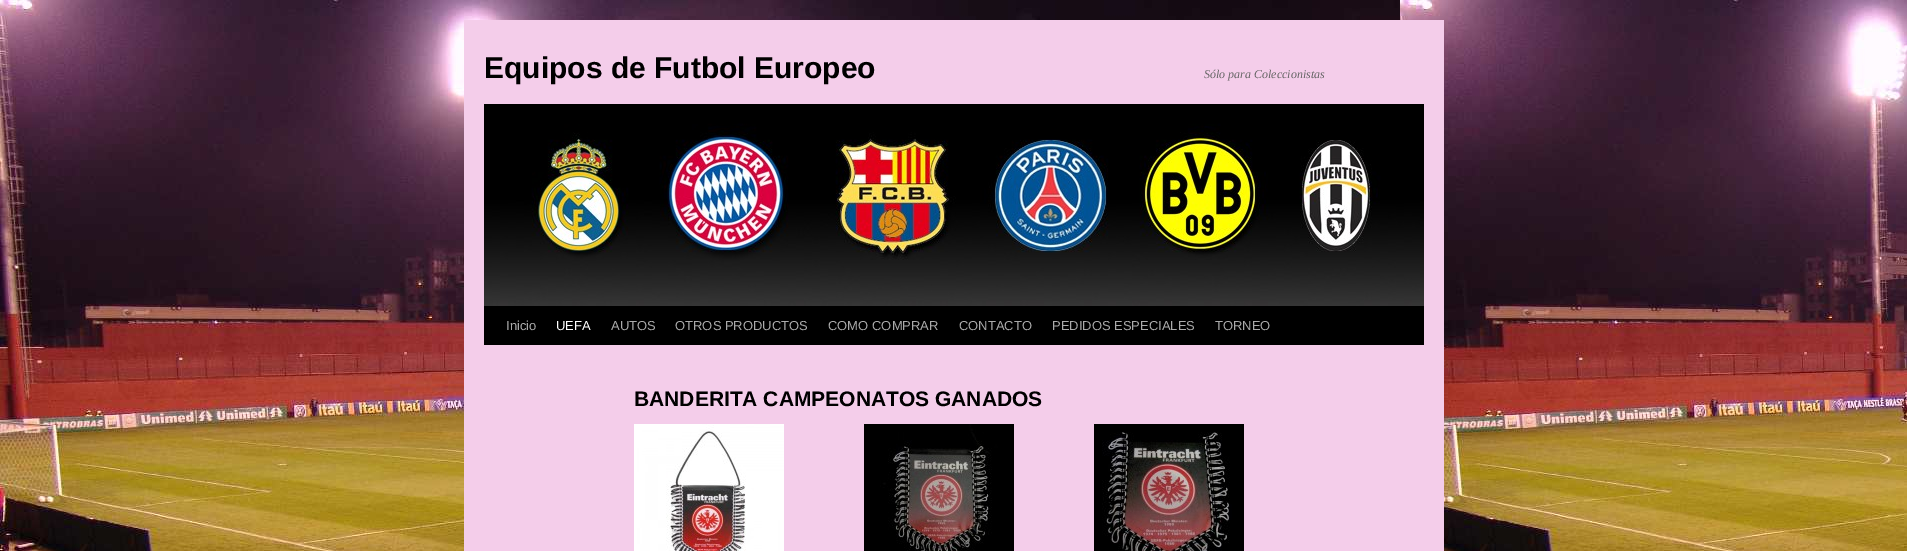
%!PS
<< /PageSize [1907 551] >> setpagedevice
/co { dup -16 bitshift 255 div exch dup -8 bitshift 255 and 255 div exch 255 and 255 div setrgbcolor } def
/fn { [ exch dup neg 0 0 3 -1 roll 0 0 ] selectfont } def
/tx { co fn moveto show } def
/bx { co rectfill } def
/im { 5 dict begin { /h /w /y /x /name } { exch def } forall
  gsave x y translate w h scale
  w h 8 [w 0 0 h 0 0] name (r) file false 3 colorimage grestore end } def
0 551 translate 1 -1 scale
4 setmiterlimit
0 0 1907 551 16#FFFFFF bx
(media/1.raw) 0 0 1907 551 im
464 20 980 531 16#F4CDEA bx
484 104 940 4 16#000000 bx
484 306 940 39 16#000000 bx
(media/2.raw) 484 108 940 198 im
(media/3.raw) 634 424 150 127 im
(media/4.raw) 864 424 150 127 im
(media/5.raw) 1094 424 150 127 im
(Equipos de Futbol Europeo) 484 78 /LiberationSans-Bold 30 16#000000 tx
(Sólo para Coleccionistas) 1204 78 /LiberationSerif-Italic 12 16#666666 tx
(Inicio) 506 330 /LiberationSans-Regular 13 16#AAAAAA tx
(UEFA) 556 330 /LiberationSans-Regular 13 16#FFFFFF tx
(AUTOS) 611 330 /LiberationSans-Regular 13 16#AAAAAA tx
(OTROS PRODUCTOS) 675 330 /LiberationSans-Regular 13 16#AAAAAA tx
(COMO COMPRAR) 828 330 /LiberationSans-Regular 13 16#AAAAAA tx
(CONTACTO) 959 330 /LiberationSans-Regular 13 16#AAAAAA tx
(PEDIDOS ESPECIALES) 1052 330 /LiberationSans-Regular 13 16#AAAAAA tx
(TORNEO) 1215 330 /LiberationSans-Regular 13 16#AAAAAA tx
(BANDERITA CAMPEONATOS GANADOS) 634 406 /LiberationSans-Bold 21 16#000000 tx
showpage
